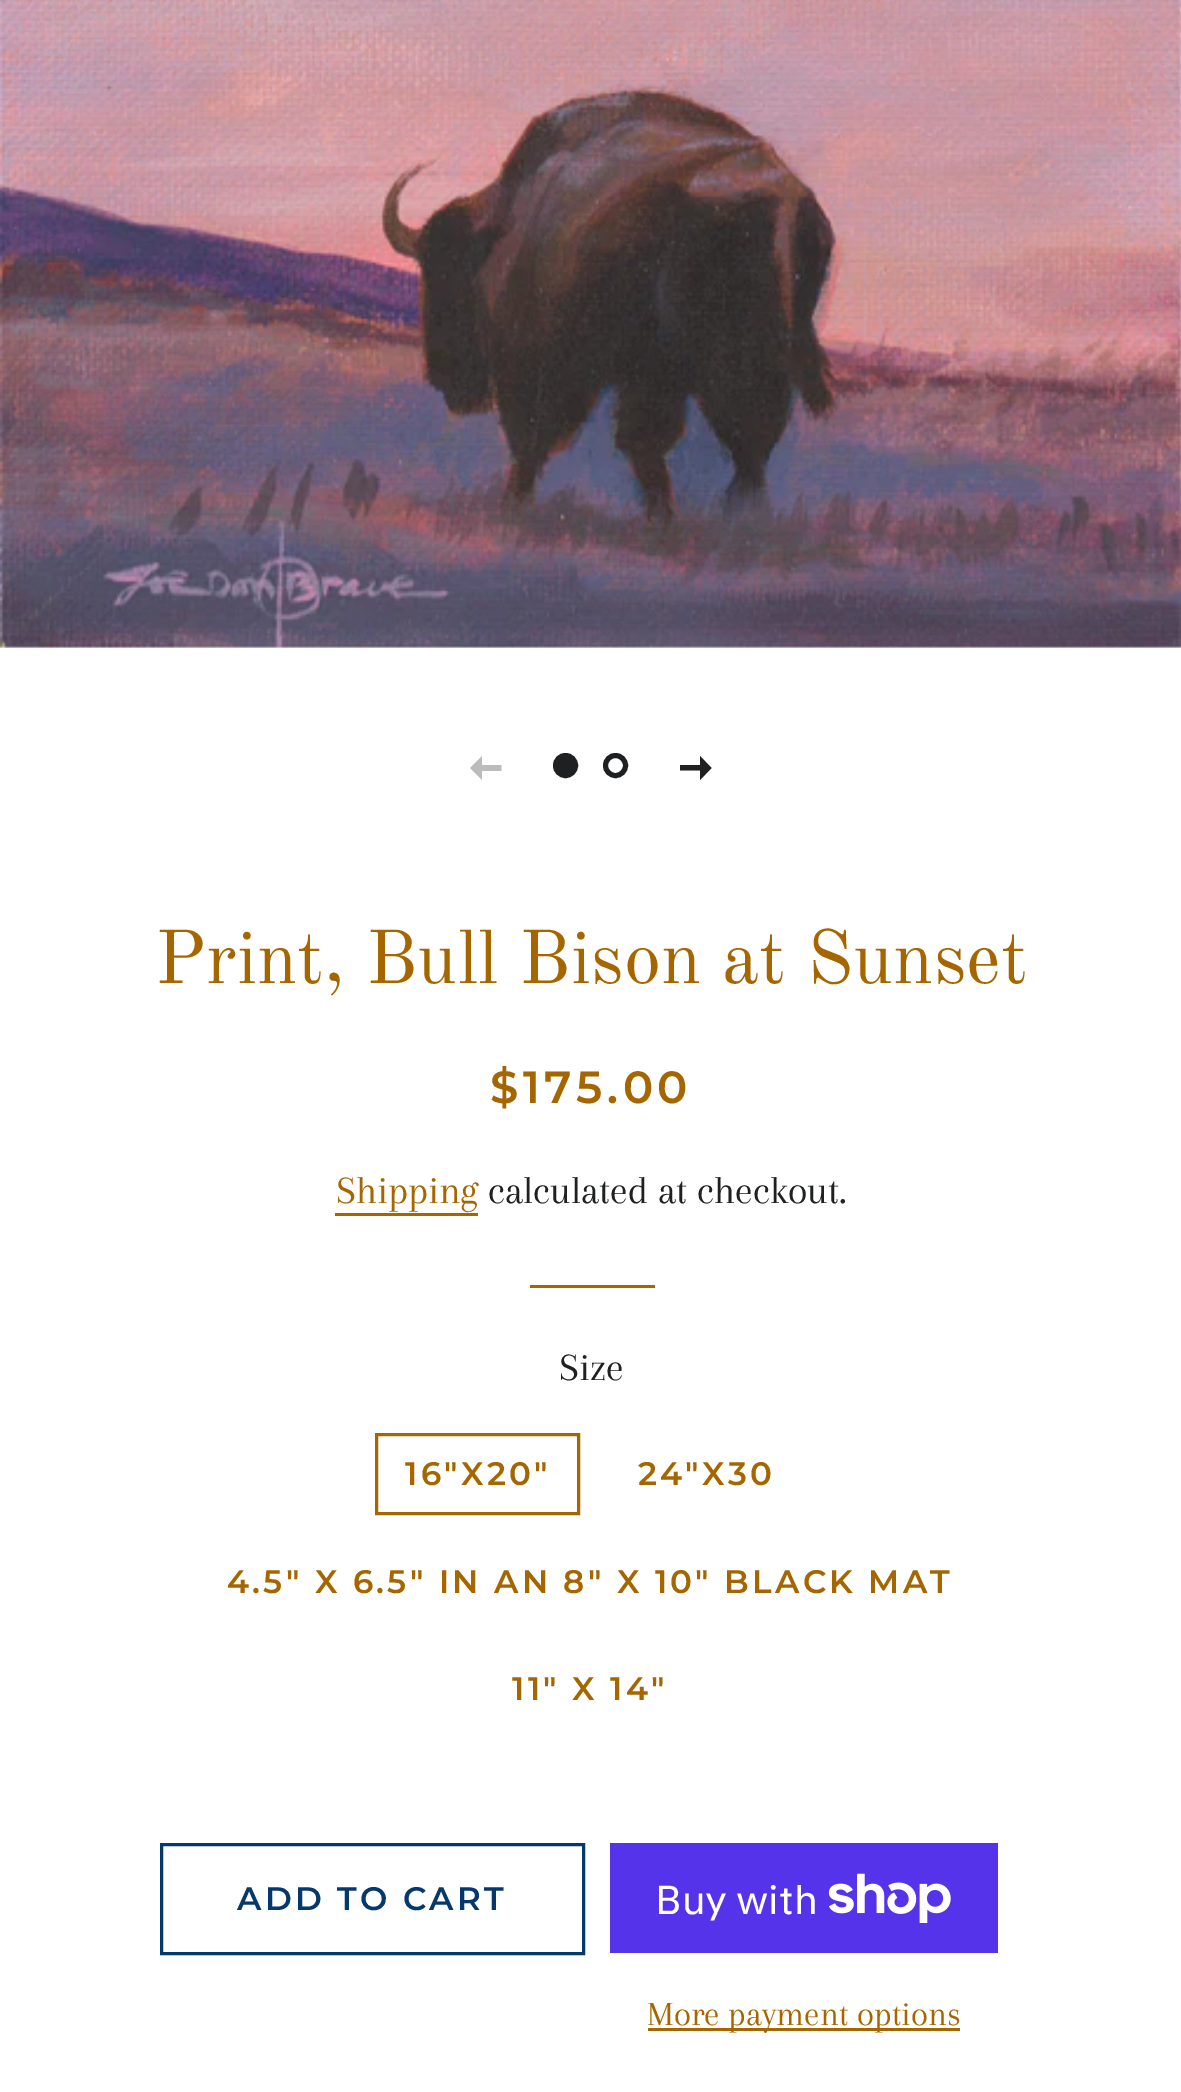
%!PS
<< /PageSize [1181 2092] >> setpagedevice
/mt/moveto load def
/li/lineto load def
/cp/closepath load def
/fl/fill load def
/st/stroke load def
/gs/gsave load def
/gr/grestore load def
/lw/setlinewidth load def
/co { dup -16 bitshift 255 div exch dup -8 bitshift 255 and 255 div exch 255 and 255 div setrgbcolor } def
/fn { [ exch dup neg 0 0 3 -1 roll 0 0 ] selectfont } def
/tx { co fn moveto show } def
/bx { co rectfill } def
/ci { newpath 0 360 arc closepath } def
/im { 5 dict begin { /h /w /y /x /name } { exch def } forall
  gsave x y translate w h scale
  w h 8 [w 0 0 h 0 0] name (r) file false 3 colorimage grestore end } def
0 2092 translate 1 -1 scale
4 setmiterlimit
0 0 1181 2092 16#FFFFFF bx
0 646 1181 2 16#F6F6F6 bx
(media/1.raw) 0 0 1181 648 im
16#BCBCBC co
470 768 mt 482 780 li 482 771 li 501.5 771 li 501.5 765 li 482 765 li 482 756 li cp fl
16#1F2021 co
565.5 765.5 10 ci gs fl gr
5 lw
st
615.5 765.5 10 ci st
711.5 768 mt 700 756 li 700 765 li 680 765 li 680 770.5 li 700 770.5 li 700 780 li cp fl
335 1213 143 3 16#A56600 bx
530 1285 125 3 16#A56600 bx
3 lw
376.5 1434.5 202 79 rectstroke
16#05386C co
161.5 1844.5 422 109 rectstroke
610 1843 388 110 16#5433EB bx
(media/2.raw) 828 1873 123 50 im
648 2028 312 3 16#A56600 bx
(Print, Bull Bison at Sunset) 155 983 /OldStandardTT-Regular 75 16#A56600 tx
/Montserrat-SemiBold 45 fn
490 1103 mt 4.5 0 ($175.00) ashow
(Shipping) 336 1203 /Arapey-Regular 40 16#A56600 tx
(calculated at checkout.) 488 1203 /Arapey-Regular 40 16#1F2021 tx
(Size) 559 1380 /Arapey-Regular 40 16#1F2021 tx
/Montserrat-SemiBold 32.5 fn
16#A56600 co
405 1485 mt 3.25 0 (16"X20") ashow
638 1485 mt 3.25 0 (24"X30) ashow
227 1593 mt 3.25 0 (4.5" X 6.5" IN AN 8" X 10" BLACK MAT) ashow
512 1700 mt 3.25 0 (11" X 14") ashow
16#05386C co
237 1910 mt 3.25 0 (ADD TO CART) ashow
(Buy with) 655 1914 /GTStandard-Regular 40 16#FFFFFF tx
(More payment options) 647 2025 /Arapey-Regular 35 16#A56600 tx
showpage
